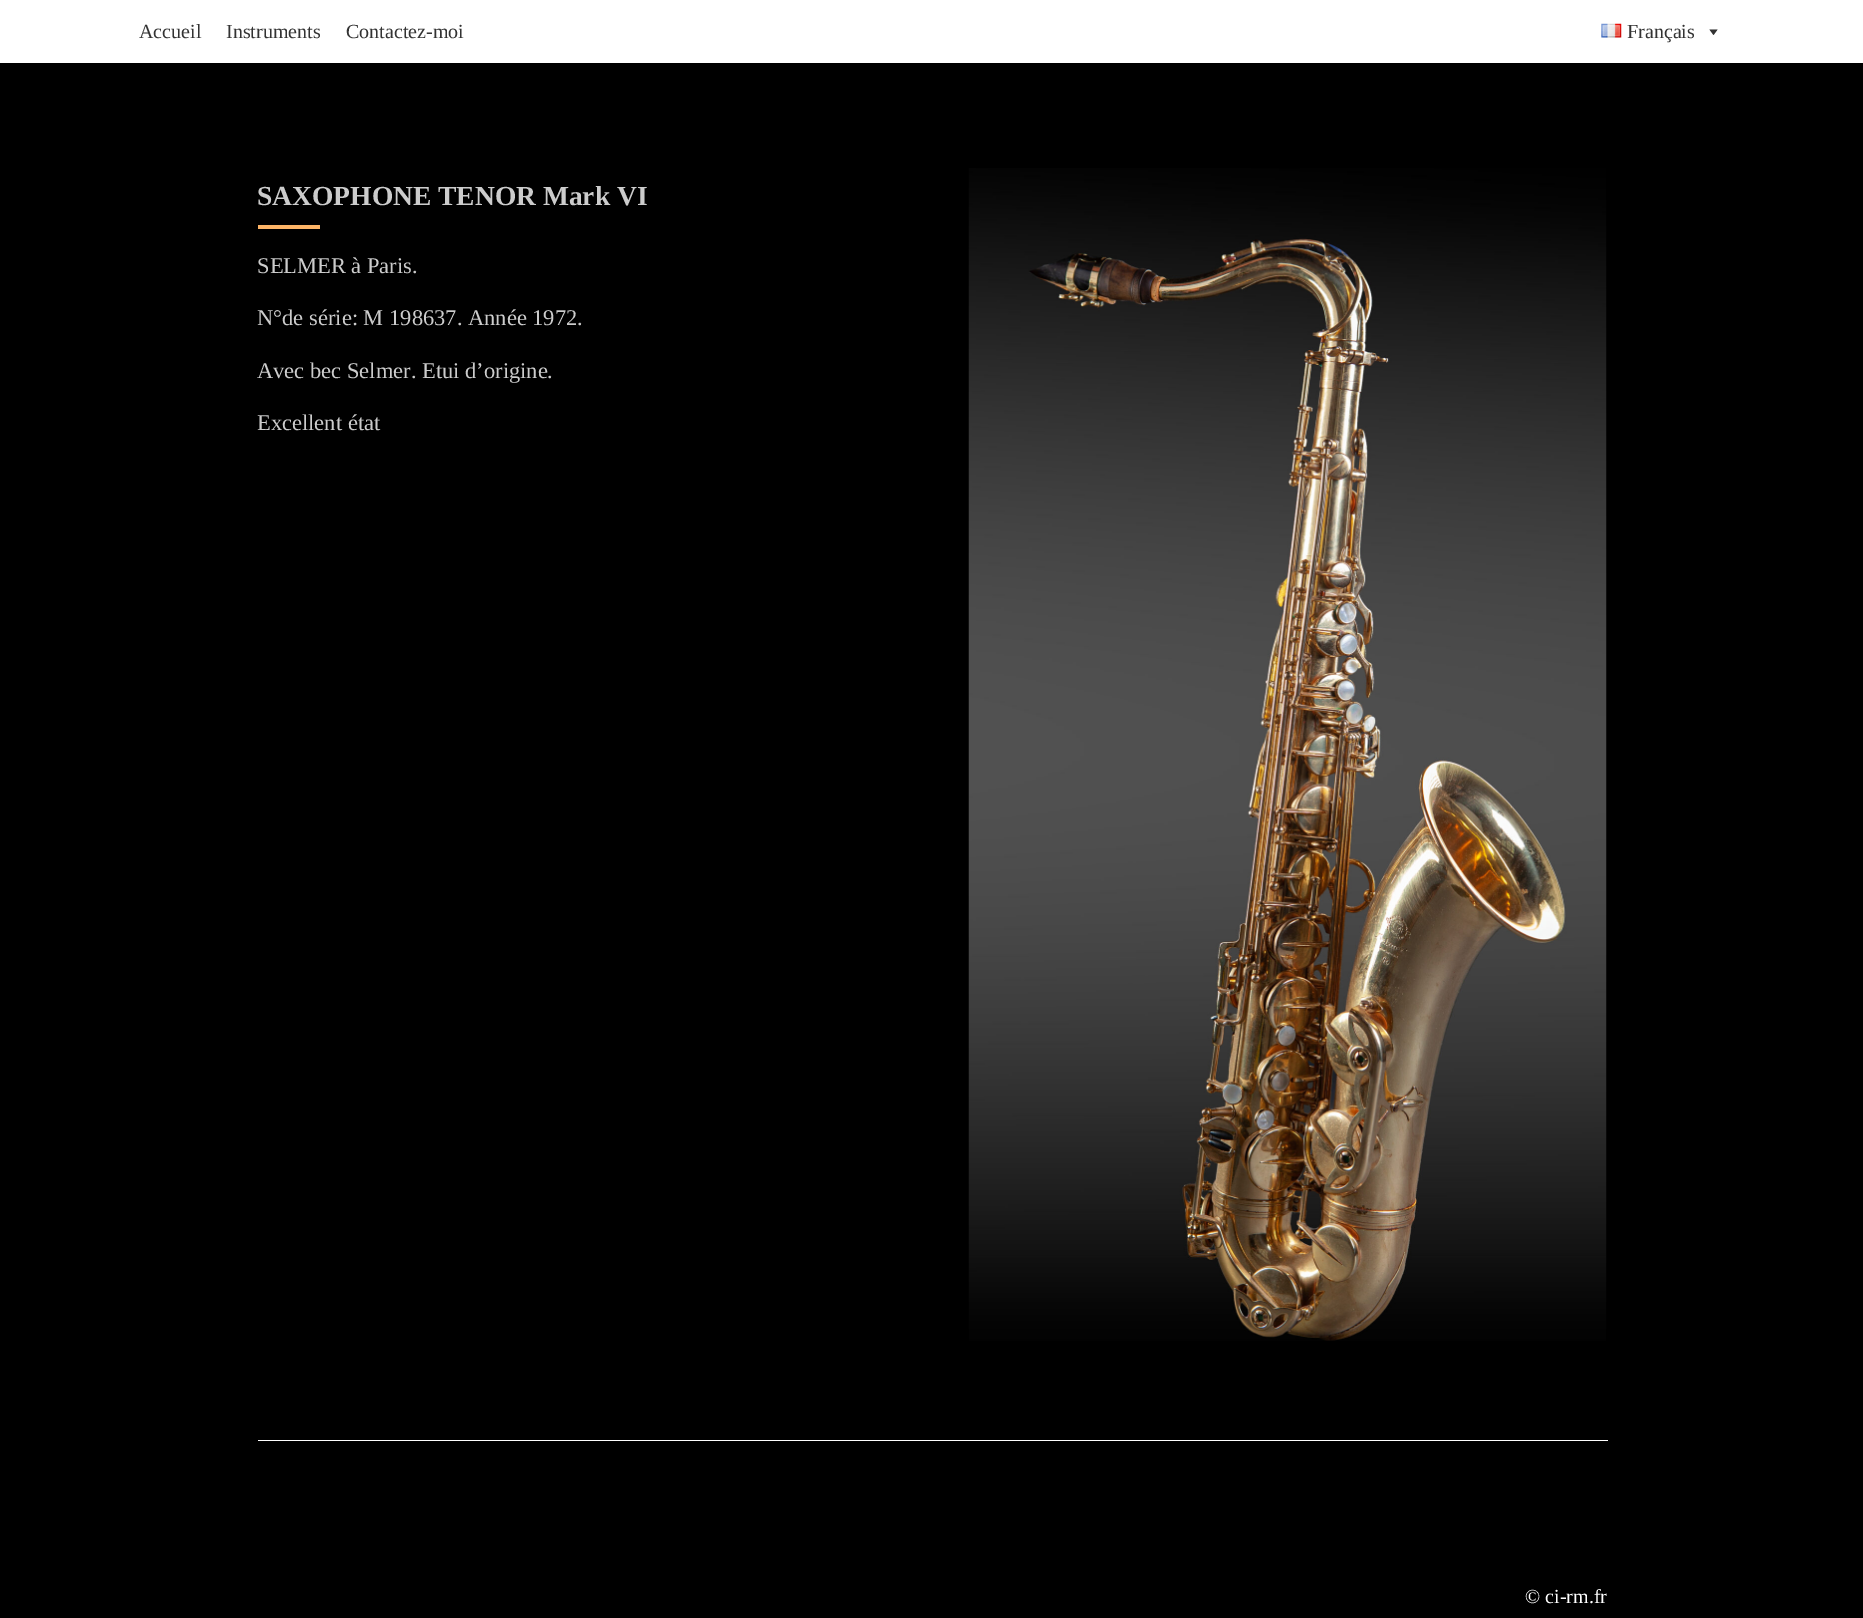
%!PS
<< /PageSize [1863 1618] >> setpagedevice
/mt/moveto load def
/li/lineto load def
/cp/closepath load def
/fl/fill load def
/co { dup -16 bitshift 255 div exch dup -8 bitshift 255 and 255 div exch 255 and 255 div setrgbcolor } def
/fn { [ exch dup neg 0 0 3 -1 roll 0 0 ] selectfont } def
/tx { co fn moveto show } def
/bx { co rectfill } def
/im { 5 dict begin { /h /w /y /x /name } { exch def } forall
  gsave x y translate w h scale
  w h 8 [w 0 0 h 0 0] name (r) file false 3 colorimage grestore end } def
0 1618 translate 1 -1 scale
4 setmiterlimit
0 0 1863 1618 16#000000 bx
0 0 1863 63 16#FFFFFF bx
(media/1.raw) 1601 23 21 15 im
16#333333 co
1717.5 29.5 mt 1713.5 35 li 1709.5 29.5 li cp fl
258 1440 1350 1 16#FFFFFF bx
258 225 62 4 16#FDB467 bx
(media/2.raw) 968 168 639 1173 im
(Accueil) 139 38 /LiberationSerif-Regular 20 16#333333 tx
(Instruments) 226 38 /LiberationSerif-Regular 20 16#333333 tx
(Contactez-moi) 346 38 /LiberationSerif-Regular 20 16#333333 tx
(Français) 1627 38 /LiberationSerif-Regular 20 16#333333 tx
(SAXOPHONE TENOR Mark VI) 257 205 /LiberationSerif-Bold 27.5 16#CCCCCC tx
(SELMER à Paris.) 257 273 /LiberationSerif-Regular 22.5 16#CCCCCC tx
(N°de série: M 198637. Année 1972.) 257 325 /LiberationSerif-Regular 22.5 16#CCCCCC tx
(Avec bec Selmer. Etui d’origine.) 257 378 /LiberationSerif-Regular 22.5 16#CCCCCC tx
(Excellent état) 257 430 /LiberationSerif-Regular 22.5 16#CCCCCC tx
(© ci-rm.fr) 1525 1603 /LiberationSerif-Regular 20 16#FFFFFF tx
showpage
